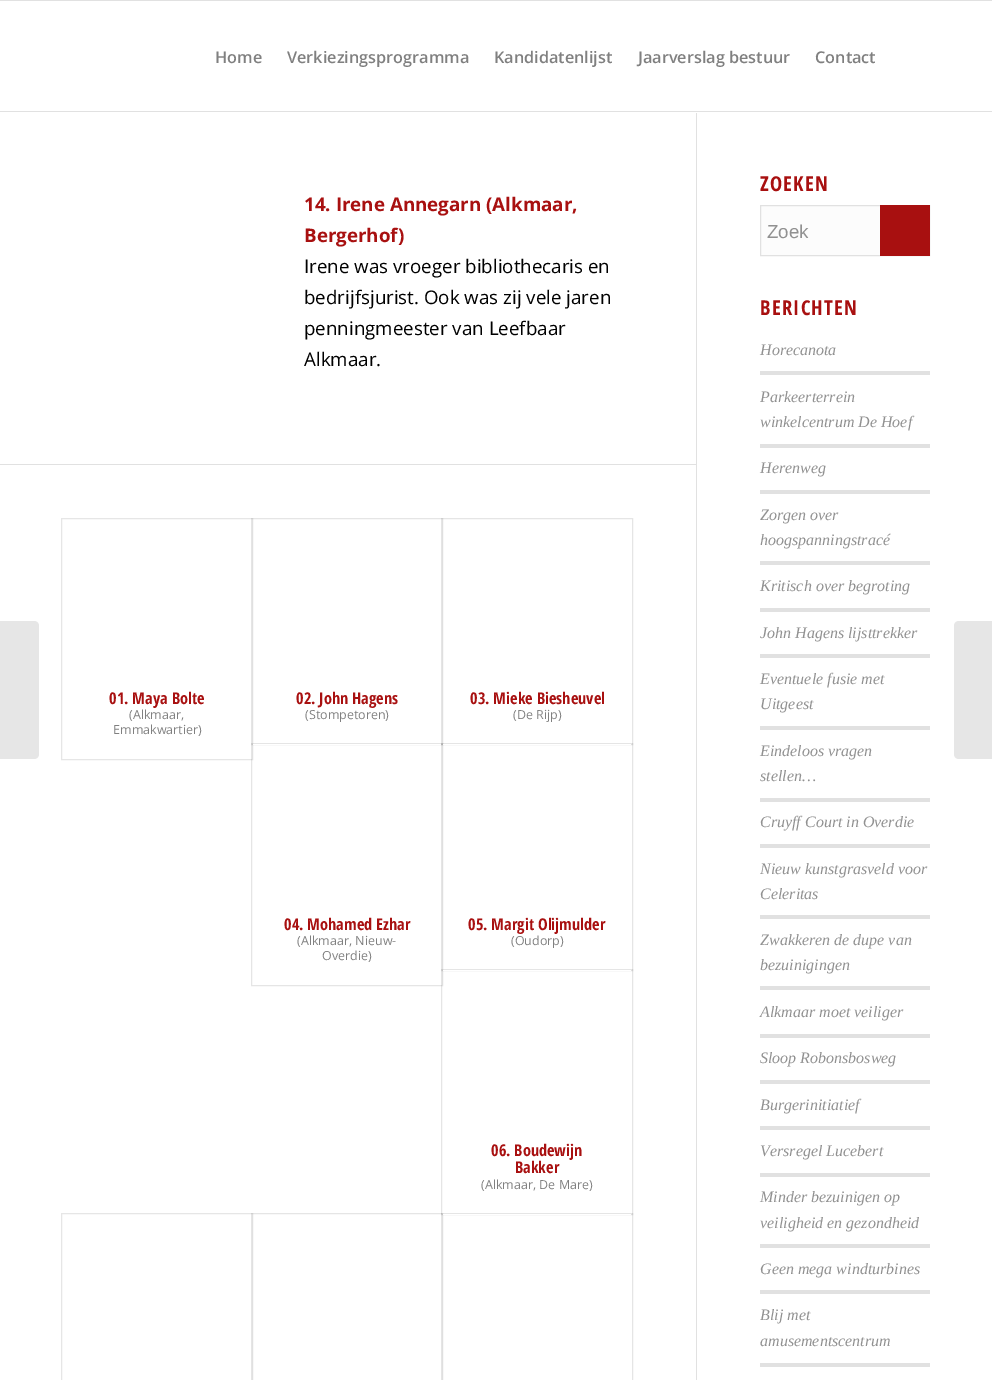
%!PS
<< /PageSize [992 1380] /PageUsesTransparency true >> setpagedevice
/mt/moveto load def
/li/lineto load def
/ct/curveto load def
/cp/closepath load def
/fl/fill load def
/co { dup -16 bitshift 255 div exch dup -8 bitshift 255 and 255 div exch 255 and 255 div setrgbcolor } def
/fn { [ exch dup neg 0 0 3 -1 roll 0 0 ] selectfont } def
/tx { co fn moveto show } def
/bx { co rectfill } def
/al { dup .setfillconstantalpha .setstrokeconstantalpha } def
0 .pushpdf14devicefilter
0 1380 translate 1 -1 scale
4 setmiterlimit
0 0 992 1380 16#FFFFFF bx
0 0 992 1 16#E1E1E1 bx
696 110 1 1270 16#E1E1E1 bx
696 110 1 3 16#FFFFFF bx
0 111 992 1 16#E1E1E1 bx
16#E6E6E6 co
0 621 mt 34 621 li 37 621 39 623 39 626 ct 39 754 li 39 757 37 759 34 759 ct 0 759 li cp fl
0 464 696 1 16#E1E1E1 bx
16#E6E6E6 co
61.5 518.5 191 241 rectstroke
0.1 al
16#000000 co
251.5 518.5 191 226 rectstroke
441.5 518.5 191 226 rectstroke
251.5 743.5 191 242 rectstroke
1 al
253 744 188 1 16#FFFFFF bx
0.1 al
16#000000 co
441.5 743.5 191 227 rectstroke
1 al
443 744 188 1 16#FFFFFF bx
0.1 al
16#000000 co
441.5 969.5 191 245 rectstroke
1 al
443 970 188 1 16#FFFFFF bx
16#E6E6E6 co
61.5 1213.5 191 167 rectstroke
0.1 al
16#000000 co
251.5 1213.5 191 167 rectstroke
441.5 1213.5 191 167 rectstroke
1 al
443 1214 188 1 16#FFFFFF bx
761 206 119 49 16#FCFCFC bx
16#E1E1E1 co
760.5 205.5 169 50 rectstroke
880 205 50 51 16#A81010 bx
760 371 170 4 16#E1E1E1 bx
760 444 170 4 16#E1E1E1 bx
760 490 170 4 16#E1E1E1 bx
760 561 170 4 16#E1E1E1 bx
760 608 170 4 16#E1E1E1 bx
760 654 170 4 16#E1E1E1 bx
760 726 170 4 16#E1E1E1 bx
760 798 170 4 16#E1E1E1 bx
760 844 170 4 16#E1E1E1 bx
760 915 170 4 16#E1E1E1 bx
760 986 170 4 16#E1E1E1 bx
760 1034 170 4 16#E1E1E1 bx
760 1080 170 4 16#E1E1E1 bx
760 1126 170 4 16#E1E1E1 bx
760 1173 170 4 16#E1E1E1 bx
760 1244 170 4 16#E1E1E1 bx
760 1290 170 4 16#E1E1E1 bx
760 1363 170 4 16#E1E1E1 bx
16#E6E6E6 co
959 621 mt 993 621 li 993 759 li 959 759 li 956 759 954 757 954 754 ct 954 626 li 954 623 956 621 959 621 ct cp fl
(Home) 215 63 /OpenSans-SemiBold 16.25 16#808080 tx
(Verkiezingsprogramma) 287 63 /OpenSans-SemiBold 16.25 16#808080 tx
(Kandidatenlijst) 494 63 /OpenSans-SemiBold 16.25 16#808080 tx
(Jaarverslag bestuur) 638 63 /OpenSans-SemiBold 16.25 16#808080 tx
(Contact) 815 63 /OpenSans-SemiBold 16.25 16#808080 tx
(14. Irene Annegarn \(Alkmaar,) 304 211 /OpenSans-Bold 18.75 16#A81010 tx
(Bergerhof\)) 304 242 /OpenSans-Bold 18.75 16#A81010 tx
(Irene was vroeger bibliothecaris en) 304 273 /OpenSans-Regular 18.75 16#000000 tx
(bedrijfsjurist. Ook was zij vele jaren) 304 304 /OpenSans-Regular 18.75 16#000000 tx
(penningmeester van Leefbaar) 304 335 /OpenSans-Regular 18.75 16#000000 tx
(Alkmaar.) 304 366 /OpenSans-Regular 18.75 16#000000 tx
(01. Maya Bolte) 109 704 /OpenSansCondensed-Bold 16.25 16#A81010 tx
(\(Alkmaar,) 129 719 /OpenSans-Regular 12.5 16#808080 tx
(Emmakwartier\)) 113 734 /OpenSans-Regular 12.5 16#808080 tx
(02. John Hagens) 296 704 /OpenSansCondensed-Bold 16.25 16#A81010 tx
(\(Stompetoren\)) 305 719 /OpenSans-Regular 12.5 16#808080 tx
(03. Mieke Biesheuvel) 470 704 /OpenSansCondensed-Bold 16.25 16#A81010 tx
(\(De Rijp\)) 513 719 /OpenSans-Regular 12.5 16#808080 tx
(04. Mohamed Ezhar) 284 930 /OpenSansCondensed-Bold 16.25 16#A81010 tx
(\(Alkmaar, Nieuw-) 297 945 /OpenSans-Regular 12.5 16#808080 tx
(Overdie\)) 322 960 /OpenSans-Regular 12.5 16#808080 tx
(05. Margit Olijmulder) 468 930 /OpenSansCondensed-Bold 16.25 16#A81010 tx
(\(Oudorp\)) 511 945 /OpenSans-Regular 12.5 16#808080 tx
(06. Boudewijn) 491 1156 /OpenSansCondensed-Bold 16.25 16#A81010 tx
(Bakker) 515 1173 /OpenSansCondensed-Bold 16.25 16#A81010 tx
(\(Alkmaar, De Mare\)) 481 1189 /OpenSans-Regular 12.5 16#808080 tx
/OpenSansCondensed-Bold 20.5 fn
16#A81010 co
760 191 mt 1.25 0 (ZOEKEN) ashow
(Zoek) 767 238 /LiberationSans-Regular 18.75 16#919191 tx
/OpenSansCondensed-Bold 20.5 fn
16#A81010 co
760 315 mt 1.25 0 (BERICHTEN) ashow
(Horecanota) 760 355 /LiberationSerif-Italic 16 16#919191 tx
(Parkeerterrein) 760 402 /LiberationSerif-Italic 16 16#919191 tx
(winkelcentrum De Hoef) 760 427 /LiberationSerif-Italic 16 16#919191 tx
(Herenweg) 760 473 /LiberationSerif-Italic 16 16#919191 tx
(Zorgen over) 760 520 /LiberationSerif-Italic 16 16#919191 tx
(hoogspanningstracé) 760 545 /LiberationSerif-Italic 16 16#919191 tx
(Kritisch over begroting) 760 591 /LiberationSerif-Italic 16 16#919191 tx
(John Hagens lijsttrekker) 760 638 /LiberationSerif-Italic 16 16#919191 tx
(Eventuele fusie met) 760 684 /LiberationSerif-Italic 16 16#919191 tx
(Uitgeest) 760 709 /LiberationSerif-Italic 16 16#919191 tx
(Eindeloos vragen) 760 756 /LiberationSerif-Italic 16 16#919191 tx
(stellen…) 760 781 /LiberationSerif-Italic 16 16#919191 tx
(Cruyff Court in Overdie) 760 827 /LiberationSerif-Italic 16 16#919191 tx
(Nieuw kunstgrasveld voor) 760 874 /LiberationSerif-Italic 16 16#919191 tx
(Celeritas) 760 899 /LiberationSerif-Italic 16 16#919191 tx
(Zwakkeren de dupe van) 760 945 /LiberationSerif-Italic 16 16#919191 tx
(bezuinigingen) 760 970 /LiberationSerif-Italic 16 16#919191 tx
(Alkmaar moet veiliger) 760 1017 /LiberationSerif-Italic 16 16#919191 tx
(Sloop Robonsbosweg) 760 1063 /LiberationSerif-Italic 16 16#919191 tx
(Burgerinitiatief) 760 1110 /LiberationSerif-Italic 16 16#919191 tx
(Versregel Lucebert) 760 1156 /LiberationSerif-Italic 16 16#919191 tx
(Minder bezuinigen op) 760 1202 /LiberationSerif-Italic 16 16#919191 tx
(veiligheid en gezondheid) 760 1228 /LiberationSerif-Italic 16 16#919191 tx
(Geen mega windturbines) 760 1274 /LiberationSerif-Italic 16 16#919191 tx
(Blij met) 760 1320 /LiberationSerif-Italic 16 16#919191 tx
(amusementscentrum) 760 1346 /LiberationSerif-Italic 16 16#919191 tx
.poppdf14devicefilter showpage
